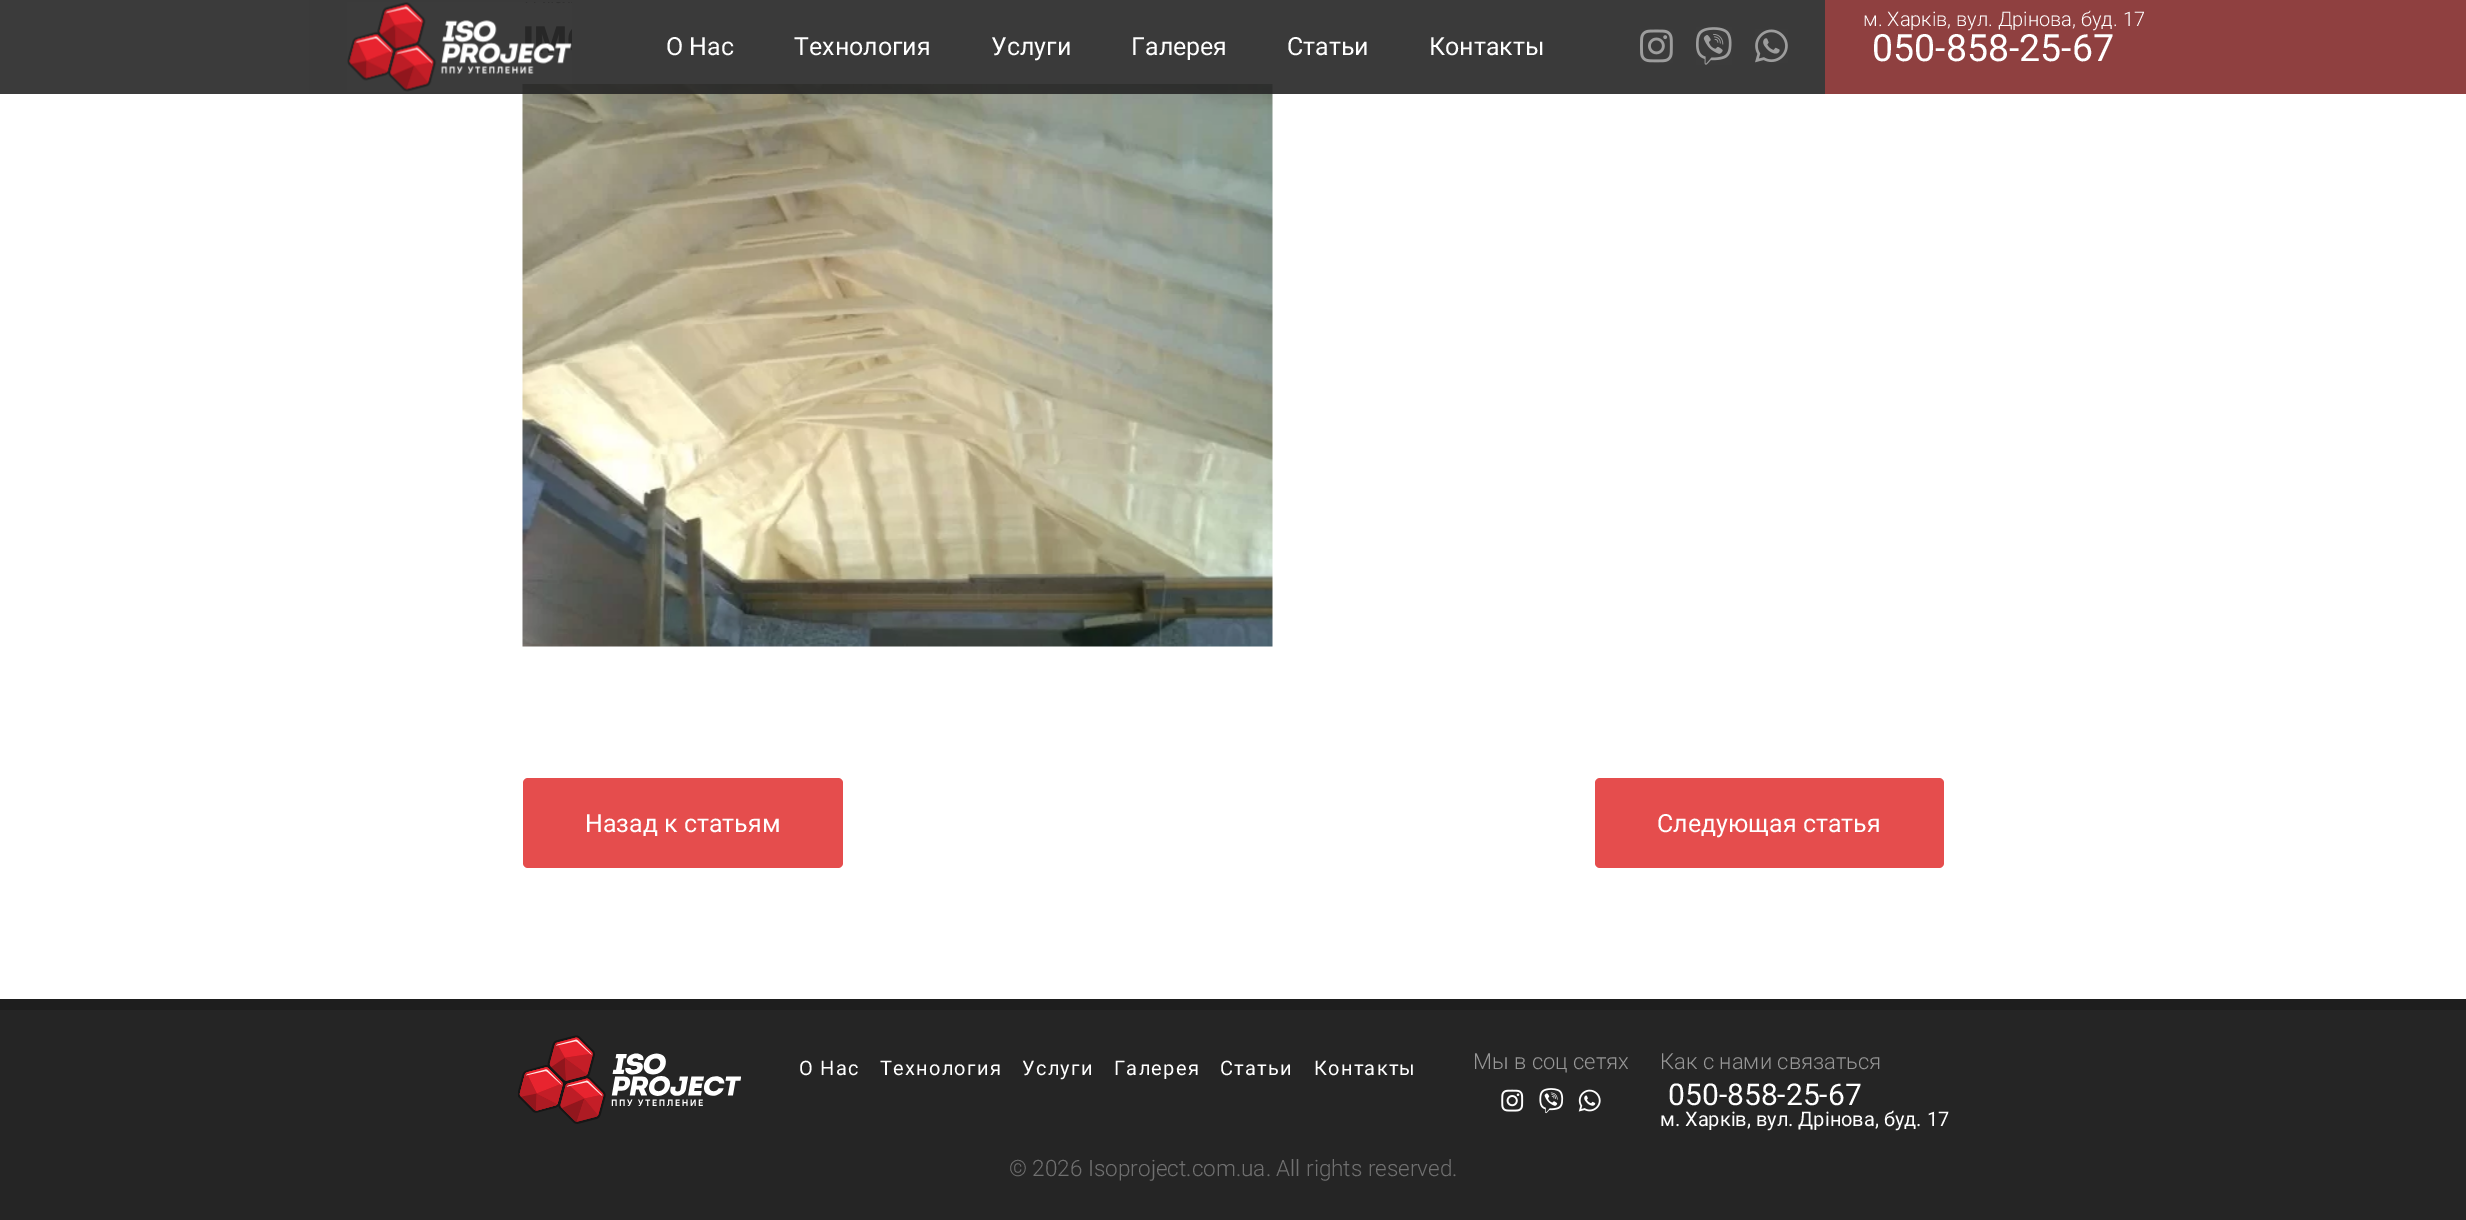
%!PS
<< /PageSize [2466 1220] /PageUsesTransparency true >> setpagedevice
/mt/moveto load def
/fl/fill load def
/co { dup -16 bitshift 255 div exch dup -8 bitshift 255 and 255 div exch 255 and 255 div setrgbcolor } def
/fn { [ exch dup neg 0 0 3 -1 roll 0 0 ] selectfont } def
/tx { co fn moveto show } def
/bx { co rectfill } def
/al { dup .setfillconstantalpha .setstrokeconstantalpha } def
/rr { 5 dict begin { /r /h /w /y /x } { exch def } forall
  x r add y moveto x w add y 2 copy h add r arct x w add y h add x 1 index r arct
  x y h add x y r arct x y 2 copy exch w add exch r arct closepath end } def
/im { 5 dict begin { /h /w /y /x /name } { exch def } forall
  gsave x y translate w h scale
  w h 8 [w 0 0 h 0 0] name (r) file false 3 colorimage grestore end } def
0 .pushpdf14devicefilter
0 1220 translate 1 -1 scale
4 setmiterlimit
0 0 2466 1220 16#FFFFFF bx
(media/5.raw) 522 84 751 563 im
0.9 al
309 0 1516 94 16#252525 bx
1 al
0 0 309 94 16#3B3B3B bx
(media/1.raw) 347 2 225 90 im
(media/2.raw) 1640 29 33 34 im
(media/3.raw) 1696 27 36 38 im
(media/4.raw) 1755 29 33 34 im
1825 0 641 94 16#8F4040 bx
16#E54D4D co
523 778 320 90 5 rr fl
1595 778 349 90 5 rr fl
0 1010 2466 210 16#252525 bx
0 999 2466 11 16#1E1E1E bx
(media/6.raw) 518 1035 223 89 im
(media/7.raw) 1501 1089 23 23 im
(media/8.raw) 1539 1088 25 26 im
(media/9.raw) 1578 1089 23 23 im
(O Hac) 666 55 /Roboto-Regular 25 16#FFFFFF tx
(Технология) 794 55 /Roboto-Regular 25 16#FFFFFF tx
(Услуги) 991 55 /Roboto-Regular 25 16#FFFFFF tx
(Галерея) 1131 55 /Roboto-Regular 25 16#FFFFFF tx
(Статьи) 1287 55 /Roboto-Regular 25 16#FFFFFF tx
(Контакты) 1429 55 /Roboto-Regular 25 16#FFFFFF tx
(м. Харків, вул. Дрінова, буд. 17) 1863 26 /Roboto-Light 20 16#FFFFFF tx
(050-858-25-67) 1872 61 /Roboto-Regular 37.5 16#FFFFFF tx
(Назад к статьям) 585 832 /Roboto-Regular 25 16#FFFFFF tx
(Следующая статья) 1657 832 /Roboto-Regular 25 16#FFFFFF tx
/Roboto-Regular 20 fn
799 1075 mt 1.25 0 (O Hac) ashow
880 1075 mt 1.25 0 (Технология) ashow
1022 1075 mt 1.25 0 (Услуги) ashow
1114 1075 mt 1.25 0 (Галерея) ashow
1220 1075 mt 1.25 0 (Статьи) ashow
1314 1075 mt 1.25 0 (Контакты) ashow
(Мы в соц сетях) 1473 1069 /Roboto-Light 22 16#979797 tx
(Как с нами связаться) 1660 1069 /Roboto-Light 22 16#979797 tx
(050-858-25-67) 1668 1105 /Roboto-Regular 30 16#FFFFFF tx
(м. Харків, вул. Дрінова, буд. 17) 1660 1126 /Roboto-Regular 20 16#FFFFFF tx
(© 2026 Isoproject.com.ua. All rights reserved.) 1009 1176 /Roboto-Light 22.5 16#707070 tx
.poppdf14devicefilter showpage
